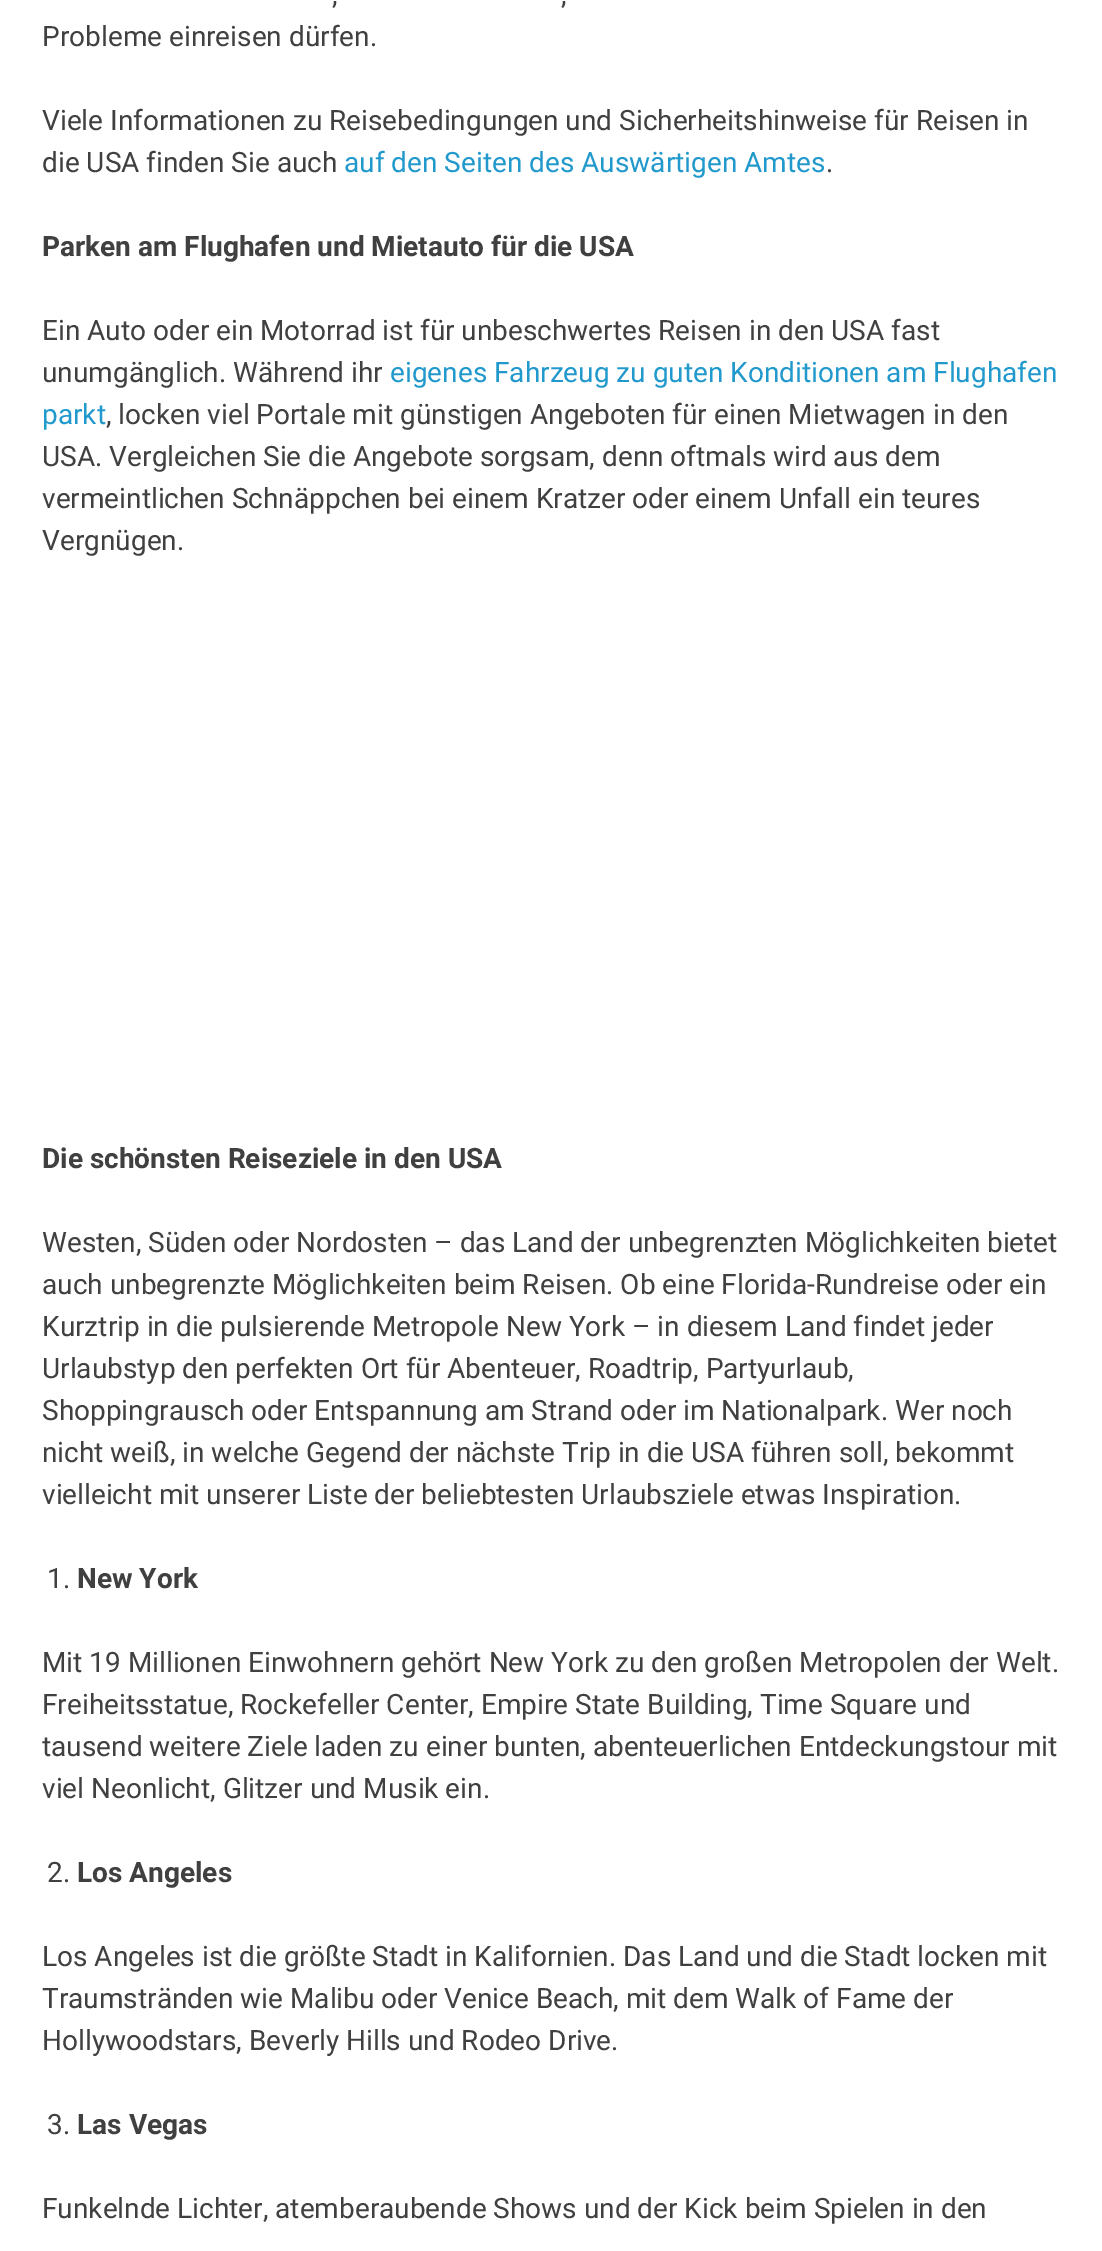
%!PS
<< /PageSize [1102 2251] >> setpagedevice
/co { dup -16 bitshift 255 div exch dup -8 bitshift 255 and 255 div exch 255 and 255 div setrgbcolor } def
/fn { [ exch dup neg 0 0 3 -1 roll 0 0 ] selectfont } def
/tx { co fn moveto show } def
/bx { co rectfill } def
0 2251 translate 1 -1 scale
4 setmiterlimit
0 0 1102 2251 16#FFFFFF bx
(,) 332 4 /Roboto-Regular 28 16#404040 tx
(,) 561 4 /Roboto-Regular 28 16#404040 tx
(Probleme einreisen dürfen.) 42 46 /Roboto-Regular 28 16#404040 tx
(Viele Informationen zu Reisebedingungen und Sicherheitshinweise für Reisen in) 42 130 /Roboto-Regular 28 16#404040 tx
(die USA finden Sie auch) 42 172 /Roboto-Regular 28 16#404040 tx
(auf den Seiten des Auswärtigen Amtes) 344 172 /Roboto-Regular 28 16#2299CC tx
(.) 826 172 /Roboto-Regular 28 16#404040 tx
(Parken am Flughafen und Mietauto für die USA) 42 256 /Roboto-Bold 28 16#404040 tx
(Ein Auto oder ein Motorrad ist für unbeschwertes Reisen in den USA fast) 42 340 /Roboto-Regular 28 16#404040 tx
(unumgänglich. Während ihr) 42 382 /Roboto-Regular 28 16#404040 tx
(eigenes Fahrzeug zu guten Konditionen am Flughafen) 390 382 /Roboto-Regular 28 16#2299CC tx
(parkt) 42 424 /Roboto-Regular 28 16#2299CC tx
(, locken viel Portale mit günstigen Angeboten für einen Mietwagen in den) 106 424 /Roboto-Regular 28 16#404040 tx
(USA. Vergleichen Sie die Angebote sorgsam, denn oftmals wird aus dem) 42 466 /Roboto-Regular 28 16#404040 tx
(vermeintlichen Schnäppchen bei einem Kratzer oder einem Unfall ein teures) 42 508 /Roboto-Regular 28 16#404040 tx
(Vergnügen.) 42 550 /Roboto-Regular 28 16#404040 tx
(Die schönsten Reiseziele in den USA) 42 1168 /Roboto-Bold 28 16#404040 tx
(Westen, Süden oder Nordosten – das Land der unbegrenzten Möglichkeiten bietet) 42 1252 /Roboto-Regular 28 16#404040 tx
(auch unbegrenzte Möglichkeiten beim Reisen. Ob eine Florida-Rundreise oder ein) 42 1294 /Roboto-Regular 28 16#404040 tx
(Kurztrip in die pulsierende Metropole New York – in diesem Land findet jeder) 42 1336 /Roboto-Regular 28 16#404040 tx
(Urlaubstyp den perfekten Ort für Abenteuer, Roadtrip, Partyurlaub,) 42 1378 /Roboto-Regular 28 16#404040 tx
(Shoppingrausch oder Entspannung am Strand oder im Nationalpark. Wer noch) 42 1420 /Roboto-Regular 28 16#404040 tx
(nicht weiß, in welche Gegend der nächste Trip in die USA führen soll, bekommt) 42 1462 /Roboto-Regular 28 16#404040 tx
(vielleicht mit unserer Liste der beliebtesten Urlaubsziele etwas Inspiration.) 42 1504 /Roboto-Regular 28 16#404040 tx
(1.) 47 1588 /Roboto-Regular 28 16#404040 tx
(New York) 77 1588 /Roboto-Bold 28 16#404040 tx
(Mit 19 Millionen Einwohnern gehört New York zu den großen Metropolen der Welt.) 42 1672 /Roboto-Regular 28 16#404040 tx
(Freiheitsstatue, Rockefeller Center, Empire State Building, Time Square und) 42 1714 /Roboto-Regular 28 16#404040 tx
(tausend weitere Ziele laden zu einer bunten, abenteuerlichen Entdeckungstour mit) 42 1756 /Roboto-Regular 28 16#404040 tx
(viel Neonlicht, Glitzer und Musik ein.) 42 1798 /Roboto-Regular 28 16#404040 tx
(2.) 47 1882 /Roboto-Regular 28 16#404040 tx
(Los Angeles) 77 1882 /Roboto-Bold 28 16#404040 tx
(Los Angeles ist die größte Stadt in Kalifornien. Das Land und die Stadt locken mit) 42 1966 /Roboto-Regular 28 16#404040 tx
(Traumstränden wie Malibu oder Venice Beach, mit dem Walk of Fame der) 42 2008 /Roboto-Regular 28 16#404040 tx
(Hollywoodstars, Beverly Hills und Rodeo Drive.) 42 2050 /Roboto-Regular 28 16#404040 tx
(3.) 47 2134 /Roboto-Regular 28 16#404040 tx
(Las Vegas) 77 2134 /Roboto-Bold 28 16#404040 tx
(Funkelnde Lichter, atemberaubende Shows und der Kick beim Spielen in den) 42 2218 /Roboto-Regular 28 16#404040 tx
showpage
